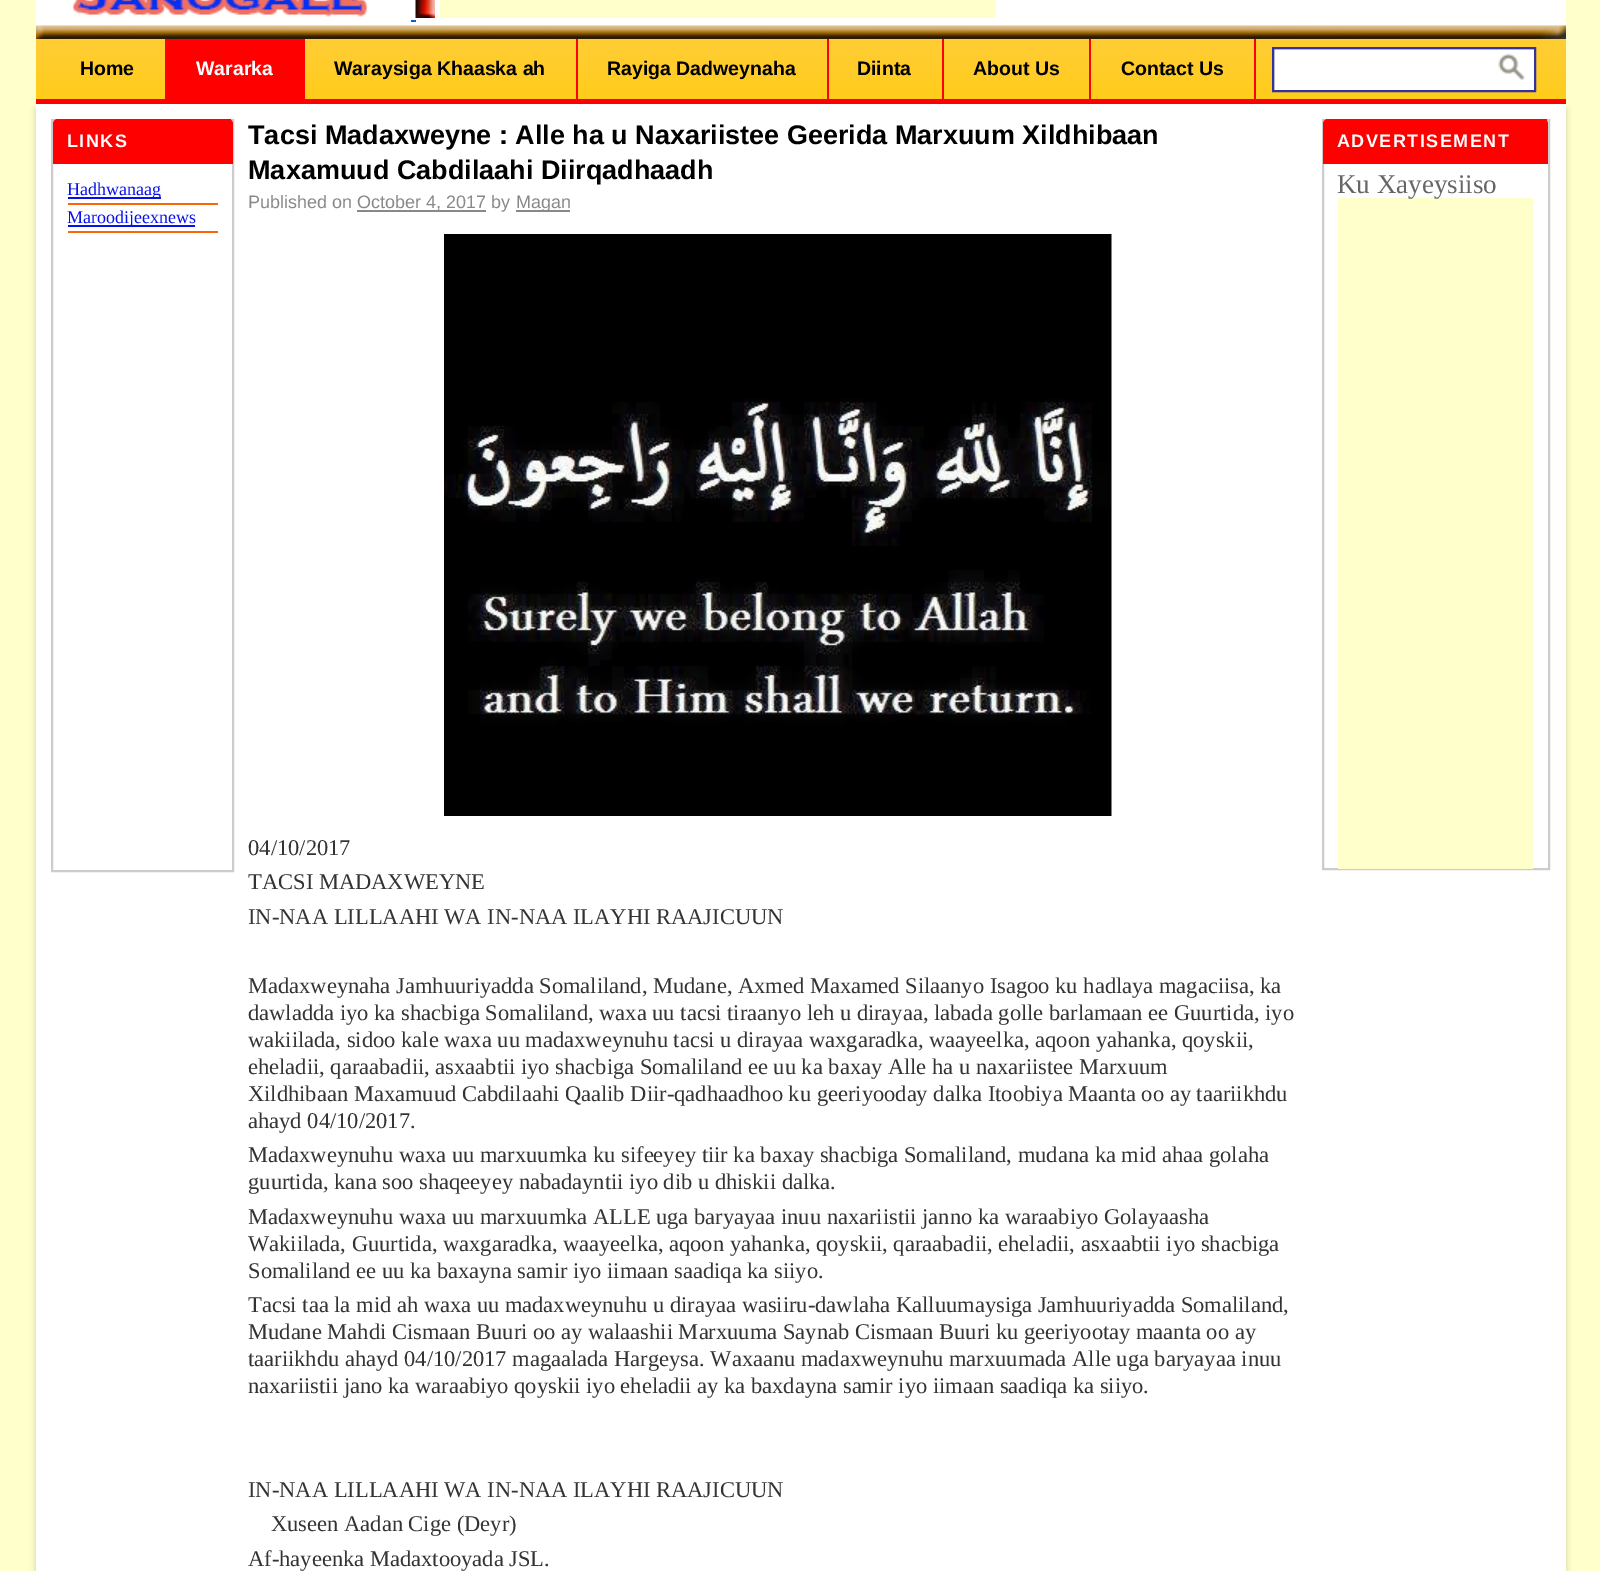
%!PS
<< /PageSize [1600 1571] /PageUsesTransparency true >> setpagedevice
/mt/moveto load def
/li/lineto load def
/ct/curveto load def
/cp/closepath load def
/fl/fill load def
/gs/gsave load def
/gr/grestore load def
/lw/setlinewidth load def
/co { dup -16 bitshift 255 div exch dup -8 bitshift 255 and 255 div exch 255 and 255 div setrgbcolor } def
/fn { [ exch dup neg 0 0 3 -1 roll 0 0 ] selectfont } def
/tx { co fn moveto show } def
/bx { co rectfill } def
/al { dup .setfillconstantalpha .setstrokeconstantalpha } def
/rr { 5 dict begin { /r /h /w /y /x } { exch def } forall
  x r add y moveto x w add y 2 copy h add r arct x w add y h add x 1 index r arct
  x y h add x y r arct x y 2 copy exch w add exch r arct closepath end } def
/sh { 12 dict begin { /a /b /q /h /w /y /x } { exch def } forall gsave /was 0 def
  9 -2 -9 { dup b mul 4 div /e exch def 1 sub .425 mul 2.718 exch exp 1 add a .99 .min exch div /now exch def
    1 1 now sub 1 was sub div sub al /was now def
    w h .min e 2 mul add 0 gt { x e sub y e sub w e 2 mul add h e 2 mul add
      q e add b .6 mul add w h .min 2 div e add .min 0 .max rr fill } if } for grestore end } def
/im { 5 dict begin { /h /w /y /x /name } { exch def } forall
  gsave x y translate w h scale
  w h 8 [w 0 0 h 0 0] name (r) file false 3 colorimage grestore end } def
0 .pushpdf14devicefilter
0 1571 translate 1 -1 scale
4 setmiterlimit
0 0 1600 1571 16#FFFFCC bx
36 0 1530 1571 16#FFFFFF bx
(media/1.raw) 71 0 297 17 im
(media/2.raw) 415 0 20 18 im
440 0 556 18 16#FFFFCC bx
411 20 5 2 16#0066CC bx
(media/3.raw) 36 25 1530 14 im
(media/4.raw) 36 39 1530 60 im
36 99 1530 5 16#FF0000 bx
165 39 140 60 16#FF0000 bx
576 39 2 60 16#FF0000 bx
827 39 2 60 16#FF0000 bx
942 39 2 60 16#FF0000 bx
1089 39 2 60 16#FF0000 bx
1254 39 2 60 16#FF0000 bx
1275 50 259 40 16#FFFFFF bx
(media/5.raw) 1498 53 27 27 im
gs
1274 48 261 42 rectclip
16#E6E6E6 co
1125 -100 mt 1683 -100 li 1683 238 li 1125 238 li cp 1275 50 mt 1536 50 li 1536 92 li 1275 92 li cp eofill
gr
16#333399 co
2 lw
1273 48 262 43 rectstroke
gs
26 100 mt 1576 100 li 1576 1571 li 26 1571 li cp 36 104 mt 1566 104 li 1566 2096 li 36 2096 li cp eoclip newpath
16#000000 co
36 110 1530 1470 0 3 .2 sh
gr
16#CCCCCC co
52 120 181 751 rectstroke
16#FF0000 co
58 119 mt 228 119 li 231 119 233 121 233 124 ct 233 164 li 53 164 li 53 124 li 53 121 55 119 58 119 ct cp fl
56 119 175 1 16#FF0000 bx
68 203 150 2 16#FA6706 bx
68 197 93 2 16#0510EB bx
68 231 150 2 16#FA6706 bx
68 225 127 2 16#0510EB bx
357 210 129 2 16#888888 bx
516 210 54 2 16#888888 bx
(media/6.raw) 444 234 668 582 im
16#CCCCCC co
1323 120 226 749 rectstroke
16#FF0000 co
1328 119 mt 1543 119 li 1546 119 1548 121 1548 124 ct 1548 164 li 1323 164 li 1323 124 li 1323 121 1325 119 1328 119 ct cp fl
1326 119 221 2 16#FF0000 bx
1338 198 195 671 16#FFFFCC bx
(Home) 80 75 /LiberationSans-Bold 19.5 16#000000 tx
(Wararka) 196 75 /LiberationSans-Bold 19.5 16#FFFFFF tx
(Waraysiga Khaaska ah) 334 75 /LiberationSans-Bold 19.5 16#000000 tx
(Rayiga Dadweynaha) 607 75 /LiberationSans-Bold 19.5 16#000000 tx
(Diinta) 857 75 /LiberationSans-Bold 19.5 16#000000 tx
(About Us) 973 75 /LiberationSans-Bold 19.5 16#000000 tx
(Contact Us) 1121 75 /LiberationSans-Bold 19.5 16#000000 tx
/LiberationSans-Bold 18 fn
16#FFFFFF co
67 147 mt 1.5 0 (LINKS) ashow
(Hadhwanaag) 67 195 /LiberationSerif-Regular 18 16#0510EB tx
(Maroodijeexnews) 67 223 /LiberationSerif-Regular 18 16#0510EB tx
(Tacsi Madaxweyne : Alle ha u Naxariistee Geerida Marxuum Xildhibaan) 248 144 /LiberationSans-Bold 27 16#000000 tx
(Maxamuud Cabdilaahi Diirqadhaadh) 248 179 /LiberationSans-Bold 27 16#000000 tx
(Published on) 248 208 /LiberationSans-Regular 18 16#888888 tx
(October 4, 2017 by) 357 208 /LiberationSans-Regular 18 16#888888 tx
(Magan) 516 208 /LiberationSans-Regular 18 16#888888 tx
(04/10/2017) 248 855 /LiberationSerif-Regular 22.5 16#333333 tx
(TACSI MADAXWEYNE) 248 889 /LiberationSerif-Regular 22.5 16#333333 tx
(IN-NAA LILLAAHI WA IN-NAA ILAYHI RAAJICUUN) 248 924 /LiberationSerif-Regular 22.5 16#333333 tx
(Madaxweynaha Jamhuuriyadda Somaliland, Mudane, Axmed Maxamed Silaanyo Isagoo ku hadlaya magaciisa, ka) 248 993 /LiberationSerif-Regular 22.5 16#333333 tx
(dawladda iyo ka shacbiga Somaliland, waxa uu tacsi tiraanyo leh u dirayaa, labada golle barlamaan ee Guurtida, iyo) 248 1020 /LiberationSerif-Regular 22.5 16#333333 tx
(wakiilada, sidoo kale waxa uu madaxweynuhu tacsi u dirayaa waxgaradka, waayeelka, aqoon yahanka, qoyskii,) 248 1047 /LiberationSerif-Regular 22.5 16#333333 tx
(eheladii, qaraabadii, asxaabtii iyo shacbiga Somaliland ee uu ka baxay Alle ha u naxariistee Marxuum) 248 1074 /LiberationSerif-Regular 22.5 16#333333 tx
(Xildhibaan Maxamuud Cabdilaahi Qaalib Diir-qadhaadhoo ku geeriyooday dalka Itoobiya Maanta oo ay taariikhdu) 248 1101 /LiberationSerif-Regular 22.5 16#333333 tx
(ahayd 04/10/2017.) 248 1128 /LiberationSerif-Regular 22.5 16#333333 tx
(Madaxweynuhu waxa uu marxuumka ku sifeeyey tiir ka baxay shacbiga Somaliland, mudana ka mid ahaa golaha) 248 1162 /LiberationSerif-Regular 22.5 16#333333 tx
(guurtida, kana soo shaqeeyey nabadayntii iyo dib u dhiskii dalka.) 248 1189 /LiberationSerif-Regular 22.5 16#333333 tx
(Madaxweynuhu waxa uu marxuumka ALLE uga baryayaa inuu naxariistii janno ka waraabiyo Golayaasha) 248 1224 /LiberationSerif-Regular 22.5 16#333333 tx
(Wakiilada, Guurtida, waxgaradka, waayeelka, aqoon yahanka, qoyskii, qaraabadii, eheladii, asxaabtii iyo shacbiga) 248 1251 /LiberationSerif-Regular 22.5 16#333333 tx
(Somaliland ee uu ka baxayna samir iyo iimaan saadiqa ka siiyo.) 248 1278 /LiberationSerif-Regular 22.5 16#333333 tx
(Tacsi taa la mid ah waxa uu madaxweynuhu u dirayaa wasiiru-dawlaha Kalluumaysiga Jamhuuriyadda Somaliland,) 248 1312 /LiberationSerif-Regular 22.5 16#333333 tx
(Mudane Mahdi Cismaan Buuri oo ay walaashii Marxuuma Saynab Cismaan Buuri ku geeriyootay maanta oo ay) 248 1339 /LiberationSerif-Regular 22.5 16#333333 tx
(taariikhdu ahayd 04/10/2017 magaalada Hargeysa. Waxaanu madaxweynuhu marxuumada Alle uga baryayaa inuu) 248 1366 /LiberationSerif-Regular 22.5 16#333333 tx
(naxariistii jano ka waraabiyo qoyskii iyo eheladii ay ka baxdayna samir iyo iimaan saadiqa ka siiyo.) 248 1393 /LiberationSerif-Regular 22.5 16#333333 tx
(IN-NAA LILLAAHI WA IN-NAA ILAYHI RAAJICUUN) 248 1497 /LiberationSerif-Regular 22.5 16#333333 tx
(Xuseen Aadan Cige \(Deyr\)) 271 1531 /LiberationSerif-Regular 22.5 16#333333 tx
(Af-hayeenka Madaxtooyada JSL.) 248 1566 /LiberationSerif-Regular 22.5 16#333333 tx
/LiberationSans-Bold 18 fn
16#FFFFFF co
1337 147 mt 1.5 0 (ADVERTISEMENT) ashow
(Ku Xayeysiiso) 1337 193 /LiberationSerif-Regular 27 16#666666 tx
.poppdf14devicefilter showpage
